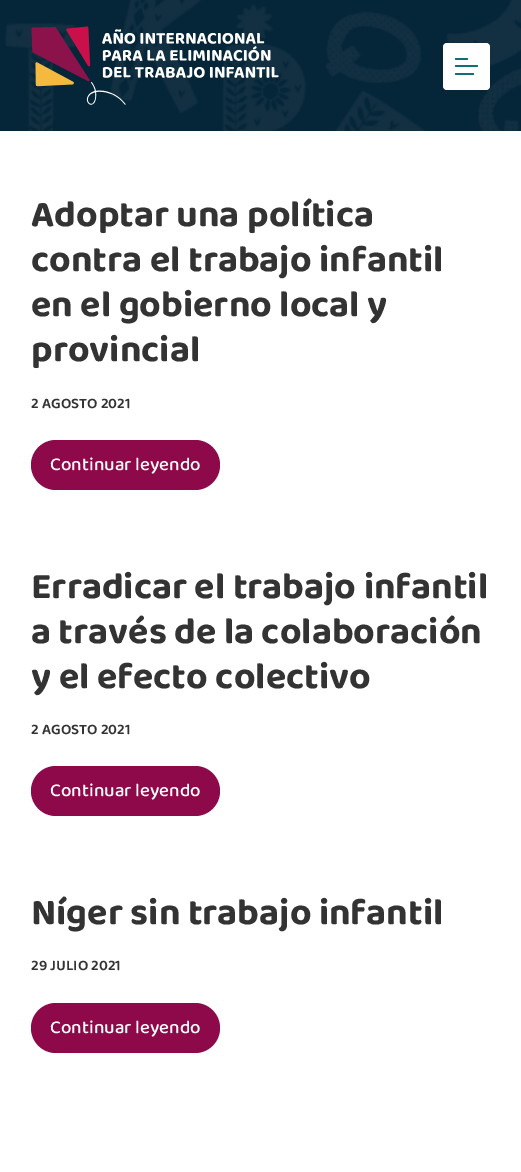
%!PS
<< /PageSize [521 1172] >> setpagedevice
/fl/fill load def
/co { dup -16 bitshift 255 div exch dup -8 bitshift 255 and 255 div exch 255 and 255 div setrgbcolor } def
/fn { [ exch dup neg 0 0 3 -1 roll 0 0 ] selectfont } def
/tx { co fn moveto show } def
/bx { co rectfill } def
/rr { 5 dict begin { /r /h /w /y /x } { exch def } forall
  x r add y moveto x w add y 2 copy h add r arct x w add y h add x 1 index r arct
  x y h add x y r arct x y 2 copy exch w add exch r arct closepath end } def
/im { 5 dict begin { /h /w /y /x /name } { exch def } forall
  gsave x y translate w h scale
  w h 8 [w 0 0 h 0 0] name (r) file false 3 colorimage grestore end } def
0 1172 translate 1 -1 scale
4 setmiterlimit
0 0 521 1172 16#FFFFFF bx
0 0 521 131 16#052538 bx
(media/1.raw) 5 0 516 131 im
(media/2.raw) 31 26 248 79 im
16#FFFFFF co
443 43 47 47 4 rr fl
16#146C77 co
455 58 13 2 1 rr fl
455 65 23 2 1 rr fl
455 73 19 2 1 rr fl
16#8D094A co
31 440 189 50 25 rr fl
31 766 189 50 25 rr fl
31 1003 189 50 25 rr fl
(Adoptar una política) 31 226 /Baloo2-Bold 37.5 16#333333 tx
(contra el trabajo infantil) 31 271 /Baloo2-Bold 37.5 16#333333 tx
(en el gobierno local y) 31 316 /Baloo2-Bold 37.5 16#333333 tx
(provincial) 31 361 /Baloo2-Bold 37.5 16#333333 tx
(2 AGOSTO 2021) 31 408 /Baloo2-SemiBold 15 16#333333 tx
(Continuar leyendo) 50 470 /Baloo2-Medium 18.75 16#FFFFFF tx
(Erradicar el trabajo infantil) 31 598 /Baloo2-Bold 37.5 16#333333 tx
(a través de la colaboración) 31 643 /Baloo2-Bold 37.5 16#333333 tx
(y el efecto colectivo) 31 688 /Baloo2-Bold 37.5 16#333333 tx
(2 AGOSTO 2021) 31 734 /Baloo2-SemiBold 15 16#333333 tx
(Continuar leyendo) 50 796 /Baloo2-Medium 18.75 16#FFFFFF tx
(Níger sin trabajo infantil) 31 924 /Baloo2-Bold 37.5 16#333333 tx
(29 JULIO 2021) 31 970 /Baloo2-SemiBold 15 16#333333 tx
(Continuar leyendo) 50 1033 /Baloo2-Medium 18.75 16#FFFFFF tx
showpage
